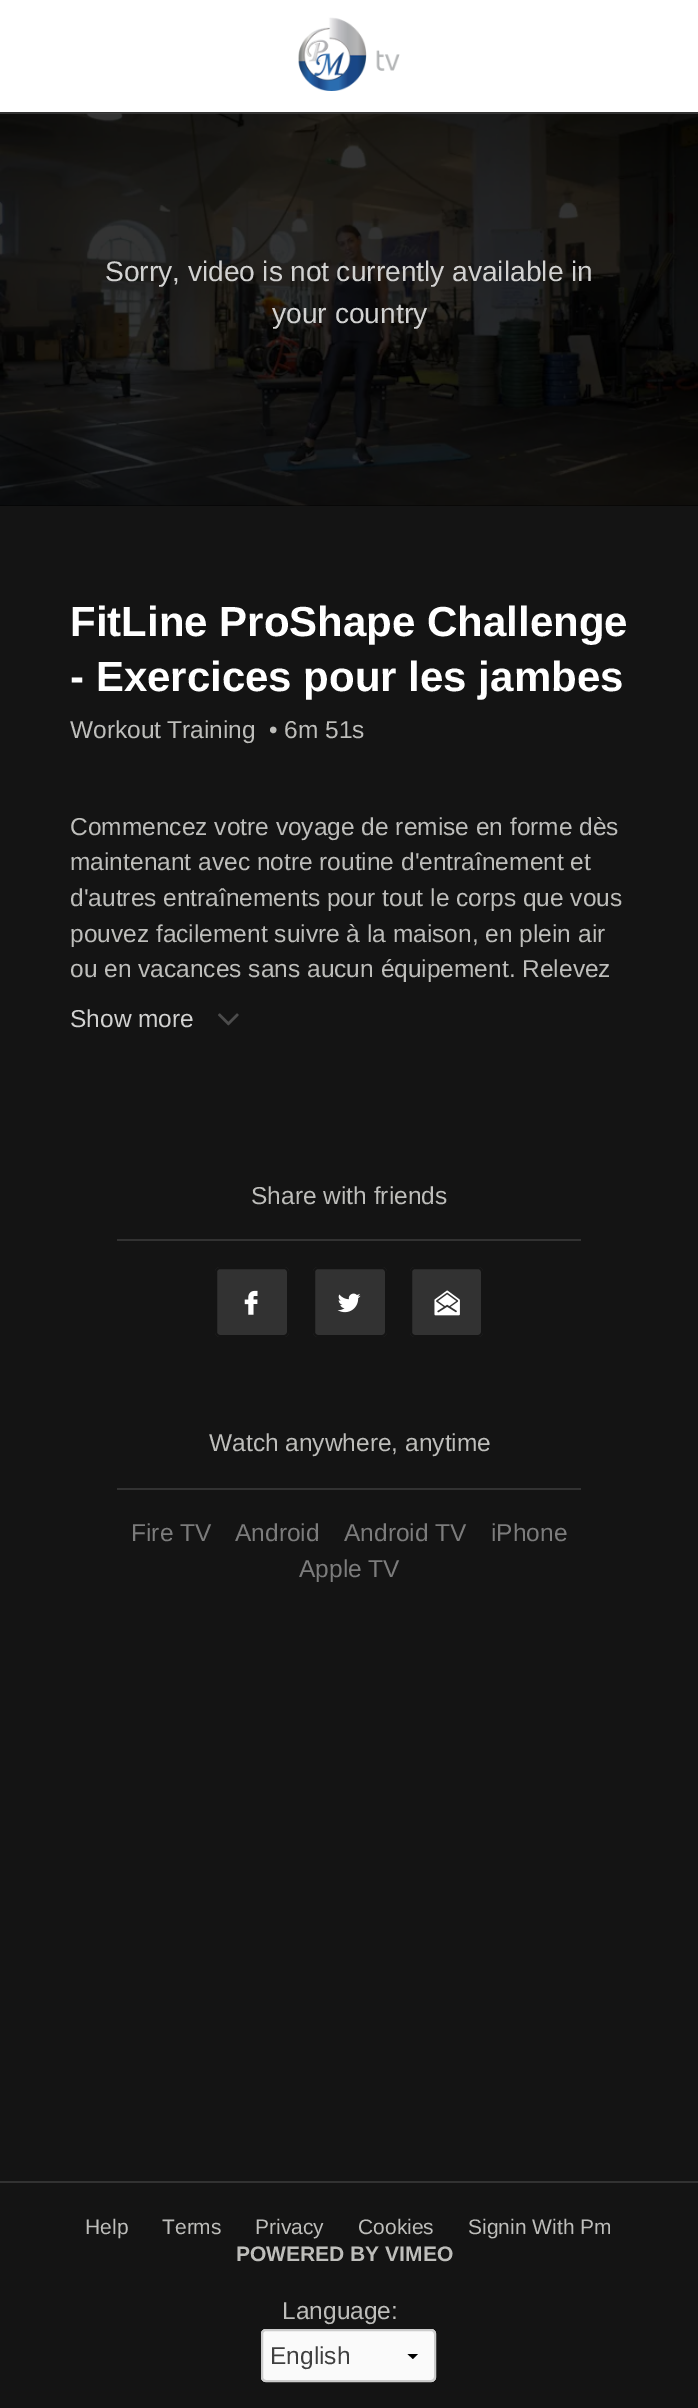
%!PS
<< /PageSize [698 2408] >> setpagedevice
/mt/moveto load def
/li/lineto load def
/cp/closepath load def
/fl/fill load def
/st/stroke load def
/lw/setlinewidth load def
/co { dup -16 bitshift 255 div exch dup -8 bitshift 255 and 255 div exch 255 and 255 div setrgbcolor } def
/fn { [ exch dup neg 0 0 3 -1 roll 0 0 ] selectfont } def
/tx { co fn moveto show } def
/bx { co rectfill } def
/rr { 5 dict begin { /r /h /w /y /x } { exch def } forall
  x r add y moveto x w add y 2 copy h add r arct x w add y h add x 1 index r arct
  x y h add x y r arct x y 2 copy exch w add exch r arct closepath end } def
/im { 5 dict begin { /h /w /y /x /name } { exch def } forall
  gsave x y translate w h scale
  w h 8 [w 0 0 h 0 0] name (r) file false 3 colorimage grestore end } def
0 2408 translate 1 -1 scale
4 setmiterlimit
0 0 698 2408 16#141414 bx
0 0 698 112 16#FFFFFF bx
0 112 698 2 16#323232 bx
(media/1.raw) 298 17 102 74 im
0 505 698 1 16#000000 bx
(media/2.raw) 0 113 698 393 im
(media/3.raw) 218 1013 21 13 im
117 1239 464 2 16#323232 bx
215 1267 74 70 5 rr fl
(media/4.raw) 244 1290 14 25 im
16#141414 co
2 lw
216 1268 72 68 4 rr st
16#323232 co
313 1267 74 70 5 rr fl
(media/5.raw) 337 1293 24 20 im
16#141414 co
314 1268 72 68 4 rr st
16#323232 co
410 1267 73 70 5 rr fl
(media/6.raw) 434 1290 26 26 im
16#141414 co
411 1268 71 68 4 rr st
117 1488 464 2 16#323232 bx
0 2181 698 2 16#323232 bx
16#FAFAFA co
261 2329 175 53 5 rr fl
16#000000 co
418 2354 mt 413 2359 li 407.5 2354 li cp fl
16#CCCCCC co
262 2330 173 51 4 rr st
/LiberationSans-Regular 28.2 fn
16#D2D2D1 co
105 281 mt -.5 0 32 (Sorry, video is not currently available in) widthshow
(your country) 272 323 /LiberationSans-Regular 28.2 16#D2D2D1 tx
(FitLine ProShape Challenge) 70 636 /LiberationSans-Bold 42 16#FFFFFF tx
(- Exercices pour les jambes) 70 691 /LiberationSans-Bold 42 16#FFFFFF tx
/LiberationSans-Regular 24.5 fn
16#BEBEBB co
70 738 mt -1 0 32 (Workout Training) widthshow
(• 6m 51s) 269 738 /LiberationSans-Regular 24.5 16#BEBEBB tx
(Commencez votre voyage de remise en forme dès) 70 835 /LiberationSans-Regular 24.5 16#BEBEBB tx
(maintenant avec notre routine d'entraînement et) 70 870 /LiberationSans-Regular 24.5 16#BEBEBB tx
(d'autres entraînements pour tout le corps que vous) 70 906 /LiberationSans-Regular 24.5 16#BEBEBB tx
(pouvez facilement suivre à la maison, en plein air) 70 942 /LiberationSans-Regular 24.5 16#BEBEBB tx
(ou en vacances sans aucun équipement. Relevez) 70 977 /LiberationSans-Regular 24.5 16#BEBEBB tx
(Show more) 70 1027 /LiberationSans-Regular 24.5 16#D2D2D1 tx
(Share with friends) 251 1204 /LiberationSans-Regular 24.5 16#BEBEBB tx
(Watch anywhere, anytime) 209 1451 /LiberationSans-Regular 24.5 16#BEBEBB tx
(Fire TV) 131 1541 /LiberationSans-Regular 24.5 16#7C7C7C tx
(Android) 235 1541 /LiberationSans-Regular 24.5 16#7C7C7C tx
(Android TV) 344 1541 /LiberationSans-Regular 24.5 16#7C7C7C tx
(iPhone) 491 1541 /LiberationSans-Regular 24.5 16#7C7C7C tx
(Apple TV) 299 1577 /LiberationSans-Regular 24.5 16#7C7C7C tx
(Help) 85 2234 /LiberationSans-Regular 21 16#BEBEBB tx
(Terms) 162 2234 /LiberationSans-Regular 21 16#BEBEBB tx
(Privacy) 255 2234 /LiberationSans-Regular 21 16#BEBEBB tx
(Cookies) 358 2234 /LiberationSans-Regular 21 16#BEBEBB tx
(Signin With Pm) 468 2234 /LiberationSans-Regular 21 16#BEBEBB tx
(POWERED BY VIMEO) 236 2261 /LiberationSans-Bold 21 16#BEBEBB tx
(Language:) 282 2319 /LiberationSans-Regular 24.5 16#BEBEBB tx
(English) 270 2364 /LiberationSans-Regular 24.5 16#3F3F3F tx
showpage
